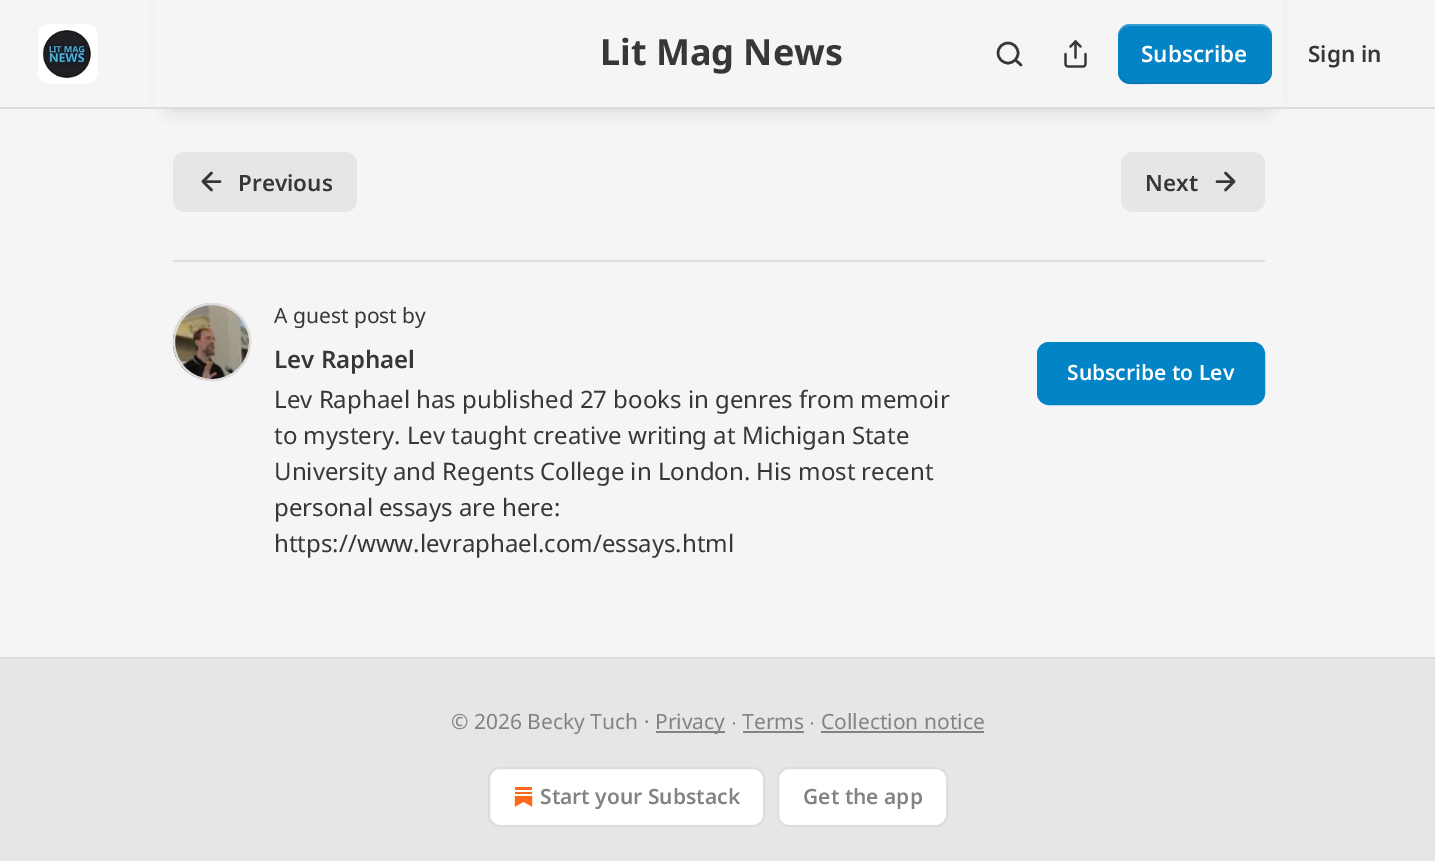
%!PS
<< /PageSize [1435 861] /PageUsesTransparency true >> setpagedevice
/mt/moveto load def
/li/lineto load def
/ct/curveto load def
/cp/closepath load def
/fl/fill load def
/st/stroke load def
/gs/gsave load def
/gr/grestore load def
/lw/setlinewidth load def
/co { dup -16 bitshift 255 div exch dup -8 bitshift 255 and 255 div exch 255 and 255 div setrgbcolor } def
/fn { [ exch dup neg 0 0 3 -1 roll 0 0 ] selectfont } def
/tx { co fn moveto show } def
/bx { co rectfill } def
/al { dup .setfillconstantalpha .setstrokeconstantalpha } def
/ci { newpath 0 360 arc closepath } def
/rr { 5 dict begin { /r /h /w /y /x } { exch def } forall
  x r add y moveto x w add y 2 copy h add r arct x w add y h add x 1 index r arct
  x y h add x y r arct x y 2 copy exch w add exch r arct closepath end } def
/sh { 12 dict begin { /a /b /q /h /w /y /x } { exch def } forall gsave /was 0 def
  9 -2 -9 { dup b mul 4 div /e exch def 1 sub .425 mul 2.718 exch exp 1 add a .99 .min exch div /now exch def
    1 1 now sub 1 was sub div sub al /was now def
    w h .min e 2 mul add 0 gt { x e sub y e sub w e 2 mul add h e 2 mul add
      q e add b .6 mul add w h .min 2 div e add .min 0 .max rr fill } if } for grestore end } def
/im { 5 dict begin { /h /w /y /x /name } { exch def } forall
  gsave x y translate w h scale
  w h 8 [w 0 0 h 0 0] name (r) file false 3 colorimage grestore end } def
0 .pushpdf14devicefilter
0 861 translate 1 -1 scale
4 setmiterlimit
0 0 1435 861 16#F5F5F5 bx
16#000000 co
173 -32 1092 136 0 10.5 .25 sh
155 0 1128 107 16#F5F5F5 bx
0 107 1435 2 16#DDDDDD bx
16#FFFFFF co
38 24 60 60 12 rr fl
(media/1.raw) 38 26 54 56 im
16#363737 co
2.5 lw
1008 53 10 ci st
1 setlinecap
1 setlinejoin
1021 65 mt 1015.5 60 li st
(media/2.raw) 1064 40 23 28 im
16#0284C7 co
1118 24 154 60 12 rr fl
0.1 al
16#000000 co
1118 70 mt 1118 89 1138 84 1152 84 ct 1238 84 li 1252 84 1272 89 1272 70 ct 1272 77 1267 82 1260 82 ct 1130 82 li 1123 82 1118 77 1118 70 ct cp fl
0.2 al
16#FFFFFF co
1130 26 mt 1260 26 li 1267 26 1272 31 1272 38 ct 1272 19 1252 24 1238 24 ct 1152 24 li 1138 24 1118 19 1118 38 ct 1118 31 1123 26 1130 26 ct cp fl
1 al
16#E6E6E6 co
173 152 184 60 12 rr fl
16#363737 co
211.5 190 mt 203 181.5 li 211.5 173 li 220 181.5 mt 203 181.5 li st
16#E6E6E6 co
1121 152 144 60 12 rr fl
16#363737 co
1217 181.5 mt 1234 181.5 li 1225.5 173 mt 1234 181.5 li 1225.5 190 li st
173 260 1092 2 16#DDDDDD bx
2 lw
0 setlinecap
0 setlinejoin
212 342 38 ci st
(media/3.raw) 172 303 79 78 im
212 342 38 ci st
1067 357 168 33 16#0284C7 bx
15 lw
1044.5 349.5 213 48 4.5 rr st
1235 357 15 33 16#0284C7 bx
1052 357 15 33 16#0284C7 bx
0 659 1435 202 16#E6E6E6 bx
0 657 1435 2 16#DDDDDD bx
656 731 69 2 16#828383 bx
743 731 61 2 16#828383 bx
821 731 163 2 16#828383 bx
16#FFFFFF co
489 768 275 58 11 rr gs fl gr
16#DDDDDD co
2 lw
st
(media/4.raw) 514 787 19 20 im
16#FFFFFF co
778 768 169 58 11 rr gs fl gr
16#DDDDDD co
st
(Lit Mag News) 600 65 /NotoSans-Bold 36 16#363737 tx
(Subscribe) 1141 62 /NotoSans-SemiBold 22.5 16#FFFFFF tx
(Sign in) 1308 62 /NotoSans-SemiBold 22.5 16#363737 tx
(Previous) 238 191 /NotoSans-SemiBold 22.5 16#363737 tx
(Next) 1145 191 /NotoSans-SemiBold 22.5 16#363737 tx
(A guest post by) 274 323 /NotoSans-Regular 21 16#363737 tx
(Lev Raphael) 274 368 /NotoSans-SemiBold 24 16#363737 tx
(Lev Raphael has published 27 books in genres from memoir) 274 408 /NotoSans-Regular 24 16#363737 tx
(to mystery. Lev taught creative writing at Michigan State) 274 444 /NotoSans-Regular 24 16#363737 tx
(University and Regents College in London. His most recent) 274 480 /NotoSans-Regular 24 16#363737 tx
(personal essays are here:) 274 516 /NotoSans-Regular 24 16#363737 tx
(https://www.levraphael.com/essays.html) 274 552 /NotoSans-Regular 24 16#363737 tx
(Subscribe to Lev) 1067 380 /NotoSans-SemiBold 21 16#FFFFFF tx
(© 2026 Becky Tuch ·) 451 729 /NotoSans-Regular 21 16#828383 tx
(Privacy) 655 729 /NotoSans-Regular 21 16#828383 tx
(∙) 731 729 /LiberationSans-Regular 21 16#828383 tx
(Terms) 742 729 /NotoSans-Regular 21 16#828383 tx
(∙) 809 729 /LiberationSans-Regular 21 16#828383 tx
(Collection notice) 821 729 /NotoSans-Regular 21 16#828383 tx
(Start your Substack) 540 804 /NotoSans-SemiBold 21 16#828383 tx
(Get the app) 803 804 /NotoSans-SemiBold 21 16#828383 tx
.poppdf14devicefilter showpage
